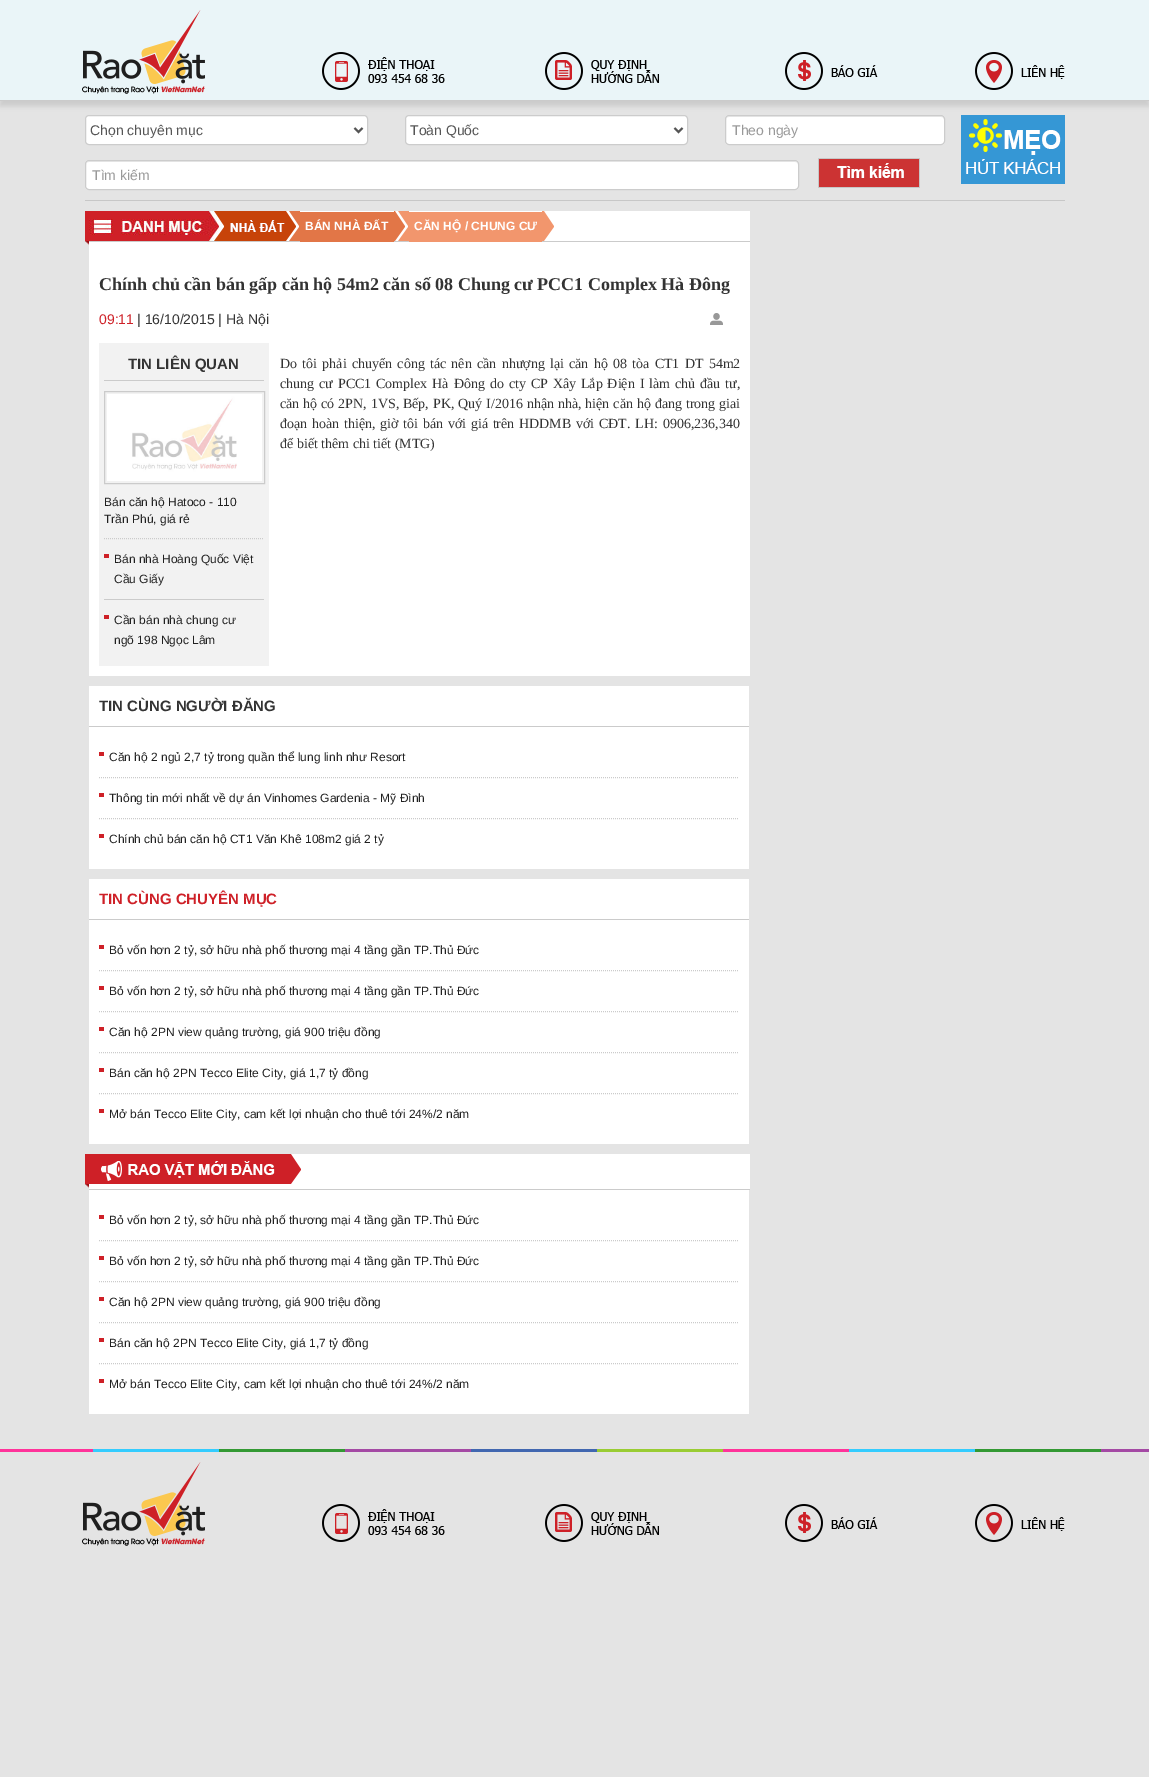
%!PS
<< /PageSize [1149 1777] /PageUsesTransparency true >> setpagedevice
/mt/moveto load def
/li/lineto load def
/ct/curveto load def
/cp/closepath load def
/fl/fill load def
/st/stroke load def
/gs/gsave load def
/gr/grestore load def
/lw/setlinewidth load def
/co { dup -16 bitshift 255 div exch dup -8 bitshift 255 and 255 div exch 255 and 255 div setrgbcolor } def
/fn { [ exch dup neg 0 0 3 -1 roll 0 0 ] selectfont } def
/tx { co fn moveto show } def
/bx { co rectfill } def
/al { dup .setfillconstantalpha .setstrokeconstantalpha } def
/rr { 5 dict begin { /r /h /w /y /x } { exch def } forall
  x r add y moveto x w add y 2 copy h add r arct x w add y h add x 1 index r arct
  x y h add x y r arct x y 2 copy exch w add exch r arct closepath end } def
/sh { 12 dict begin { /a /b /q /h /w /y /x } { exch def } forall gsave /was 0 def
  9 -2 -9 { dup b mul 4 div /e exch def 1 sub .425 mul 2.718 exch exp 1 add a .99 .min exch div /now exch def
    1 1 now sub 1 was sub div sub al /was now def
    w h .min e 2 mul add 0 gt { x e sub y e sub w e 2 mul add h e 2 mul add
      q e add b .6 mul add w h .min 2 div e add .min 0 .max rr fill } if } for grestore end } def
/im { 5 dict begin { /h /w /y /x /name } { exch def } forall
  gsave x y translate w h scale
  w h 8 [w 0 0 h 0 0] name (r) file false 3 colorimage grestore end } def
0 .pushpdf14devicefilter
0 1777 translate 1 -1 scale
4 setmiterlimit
0 0 1149 1777 16#E4E4E4 bx
16#CBCBCB co
0 5 1149 101 0 2.5 1 sh
0 0 1149 100 16#EAF5F8 bx
0 100 1149 1 16#CBCBCB bx
(media/1.raw) 82 10 123 84 im
(media/2.raw) 322 52 123 38 im
(media/3.raw) 545 52 114 38 im
(media/4.raw) 785 52 93 38 im
(media/5.raw) 975 52 90 38 im
85 200 980 1 16#C7C7C7 bx
16#FFFFFF co
85.5 115.5 282 29 3.5 rr gs fl gr
16#CCCCCC co
st
16#555555 co
2 lw
354.5 128 mt 358.5 132 li 362.5 128 li st
16#FFFFFF co
405.5 115.5 282 29 3.5 rr gs fl gr
16#CCCCCC co
1 lw
st
16#555555 co
2 lw
674.5 128 mt 678.5 132 li 682.5 128 li st
16#FFFFFF co
725 115 220 30 4 rr fl
16#ECECEC co
729 117 mt 941 117 li 943 117 944 118 944 120 ct 944 119 li 944 117 943 116 941 116 ct 729 116 li 727 116 726 117 726 119 ct 726 120 li 726 118 727 117 729 117 ct cp fl
16#CCCCCC co
1 lw
725.5 115.5 219 29 3.5 rr st
(media/6.raw) 961 115 104 69 im
16#FFFFFF co
85 160 714 30 4 rr fl
16#ECECEC co
89 162 mt 795 162 li 797 162 798 163 798 165 ct 798 163 797 161 795 161 ct 89 161 li 87 161 86 163 86 165 ct 86 163 87 162 89 162 ct cp fl
16#CCCCCC co
85.5 160.5 713 29 3.5 rr st
(media/7.raw) 818 158 102 30 im
(media/8.raw) 85 211 4 34 im
222 211 528 30 16#FFFFFF bx
89 241 661 1 16#CBCBCB bx
(media/9.raw) 89 211 133 30 im
(media/11.raw) 289 211 11 30 im
(media/10.raw) 214 211 82 30 im
(media/12.raw) 394 211 11 30 im
300 212 94 30 16#E27647 bx
(media/13.raw) 398 211 11 30 im
409 212 133 30 16#F2966D bx
(media/14.raw) 542 211 12 30 im
89 242 661 434 16#FFFFFF bx
(media/15.raw) 710 313 13 12 im
99 343 170 323 16#F2F2F2 bx
104 380 160 1 16#CBCBCB bx
104.5 391.5 160 92 rectstroke
(media/16.raw) 107 394 155 87 im
[1 1] 0 setdash
104 538.5 mt 264 538.5 li st
104 554 5 4 16#CE2027 bx
104 599 160 1 16#CBCBCB bx
104 615 5 4 16#CE2027 bx
89 686 660 183 16#FFFFFF bx
89 726 660 1 16#CBCBCB bx
99 752 5 4 16#CE2027 bx
16#CBCBCB co
99 777.5 mt 739 777.5 li st
99 793 5 4 16#CE2027 bx
16#CBCBCB co
99 818.5 mt 739 818.5 li st
99 834 5 4 16#CE2027 bx
89 879 660 265 16#FFFFFF bx
89 919 660 1 16#CBCBCB bx
99 945 5 4 16#CE2027 bx
16#CBCBCB co
99 970.5 mt 739 970.5 li st
99 986 5 4 16#CE2027 bx
16#CBCBCB co
99 1011.5 mt 739 1011.5 li st
99 1027 5 4 16#CE2027 bx
16#CBCBCB co
99 1052.5 mt 739 1052.5 li st
99 1068 5 4 16#CE2027 bx
16#CBCBCB co
99 1093.5 mt 739 1093.5 li st
99 1109 5 4 16#CE2027 bx
(media/8.raw) 85 1154 4 34 im
89 1154 661 35 16#FFFFFF bx
89 1189 661 1 16#CBCBCB bx
(media/17.raw) 89 1154 212 30 im
89 1190 660 224 16#FFFFFF bx
99 1215 5 4 16#CE2027 bx
16#CBCBCB co
99 1240.5 mt 739 1240.5 li st
99 1256 5 4 16#CE2027 bx
16#CBCBCB co
99 1281.5 mt 739 1281.5 li st
99 1297 5 4 16#CE2027 bx
16#CBCBCB co
99 1322.5 mt 739 1322.5 li st
99 1338 5 4 16#CE2027 bx
16#CBCBCB co
99 1363.5 mt 739 1363.5 li st
99 1379 5 4 16#CE2027 bx
0 1449 93 3 16#FF339A bx
(media/18.raw) 93 1449 1056 3 im
(media/19.raw) 82 1462 123 84 im
(media/20.raw) 322 1504 123 38 im
(media/21.raw) 545 1504 114 38 im
(media/22.raw) 785 1504 93 38 im
(media/23.raw) 975 1504 90 38 im
(Chọn chuyên mục) 90 135 /LiberationSans-Regular 14 16#555555 tx
(Toàn Quốc) 410 135 /LiberationSans-Regular 14 16#555555 tx
(Theo ngày) 732 135 /LiberationSans-Regular 14 16#999999 tx
(Tìm kiếm) 92 180 /LiberationSans-Regular 14 16#999999 tx
(BÁN NHÀ ĐẤT) 305 230 /LiberationSans-Bold 12 16#FFFFFF tx
(CĂN HỘ / CHUNG CƯ) 414 230 /LiberationSans-Bold 12 16#FFFFFF tx
(Chính chủ cần bán gấp căn hộ 54m2 căn số 08 Chung cư PCC1 Complex Hà Đông) 99 290 /LiberationSerif-Bold 18 16#333333 tx
(09:11) 99 324 /LiberationSans-Regular 14 16#CE2027 tx
(| 16/10/2015 | Hà Nội) 137 324 /LiberationSans-Regular 14 16#333333 tx
(TIN LIÊN QUAN) 128 369 /LiberationSans-Bold 15 16#333333 tx
(Bán căn hộ Hatoco - 110) 104 506 /LiberationSans-Regular 12 16#202020 tx
(Trần Phú, giá rẻ) 104 523 /LiberationSans-Regular 12 16#202020 tx
(Bán nhà Hoàng Quốc Việt) 114 563 /LiberationSans-Regular 12 16#202020 tx
(Cầu Giấy) 114 583 /LiberationSans-Regular 12 16#202020 tx
(Cần bán nhà chung cư) 114 624 /LiberationSans-Regular 12 16#202020 tx
(ngõ 198 Ngọc Lâm) 114 644 /LiberationSans-Regular 12 16#202020 tx
/LiberationSerif-Regular 14 fn
16#333333 co
280 368 mt 1.75 0 32 (Do tôi phải chuyển công tác nên cần nhượng lại căn hộ 08 tòa CT1 DT 54m2) widthshow
280 388 mt 1.4 0 32 (chung cư PCC1 Complex Hà Đông do cty CP Xây Lắp Điện I làm chủ đầu tư,) widthshow
280 408 mt .4 0 32 (căn hộ có 2PN, 1VS, Bếp, PK, Quý I/2016 nhận nhà, hiện căn hộ đang trong giai) widthshow
280 428 mt 1.25 0 32 (đoạn hoàn thiện, giờ tôi bán với giá trên HDDMB với CĐT. LH: 0906,236,340) widthshow
(để biết thêm chi tiết \(MTG\)) 280 448 /LiberationSerif-Regular 14 16#333333 tx
(TIN CÙNG NGƯỜI ĐĂNG) 99 711 /LiberationSans-Bold 15 16#333333 tx
(Căn hộ 2 ngủ 2,7 tỷ trong quần thể lung linh như Resort) 109 761 /LiberationSans-Regular 12 16#202020 tx
(Thông tin mới nhất về dự án Vinhomes Gardenia - Mỹ Đình) 109 802 /LiberationSans-Regular 12 16#202020 tx
(Chính chủ bán căn hộ CT1 Văn Khê 108m2 giá 2 tỷ) 109 843 /LiberationSans-Regular 12 16#202020 tx
(TIN CÙNG CHUYÊN MỤC) 99 904 /LiberationSans-Bold 15 16#CE2027 tx
(Bỏ vốn hơn 2 tỷ, sở hữu nhà phố thương mại 4 tầng gần TP.Thủ Đức) 109 954 /LiberationSans-Regular 12 16#202020 tx
(Bỏ vốn hơn 2 tỷ, sở hữu nhà phố thương mại 4 tầng gần TP.Thủ Đức) 109 995 /LiberationSans-Regular 12 16#202020 tx
(Căn hộ 2PN view quảng trường, giá 900 triệu đồng) 109 1036 /LiberationSans-Regular 12 16#202020 tx
(Bán căn hộ 2PN Tecco Elite City, giá 1,7 tỷ đồng) 109 1077 /LiberationSans-Regular 12 16#202020 tx
(Mở bán Tecco Elite City, cam kết lợi nhuận cho thuê tới 24%/2 năm) 109 1118 /LiberationSans-Regular 12 16#202020 tx
(Bỏ vốn hơn 2 tỷ, sở hữu nhà phố thương mại 4 tầng gần TP.Thủ Đức) 109 1224 /LiberationSans-Regular 12 16#202020 tx
(Bỏ vốn hơn 2 tỷ, sở hữu nhà phố thương mại 4 tầng gần TP.Thủ Đức) 109 1265 /LiberationSans-Regular 12 16#202020 tx
(Căn hộ 2PN view quảng trường, giá 900 triệu đồng) 109 1306 /LiberationSans-Regular 12 16#202020 tx
(Bán căn hộ 2PN Tecco Elite City, giá 1,7 tỷ đồng) 109 1347 /LiberationSans-Regular 12 16#202020 tx
(Mở bán Tecco Elite City, cam kết lợi nhuận cho thuê tới 24%/2 năm) 109 1388 /LiberationSans-Regular 12 16#202020 tx
.poppdf14devicefilter showpage
